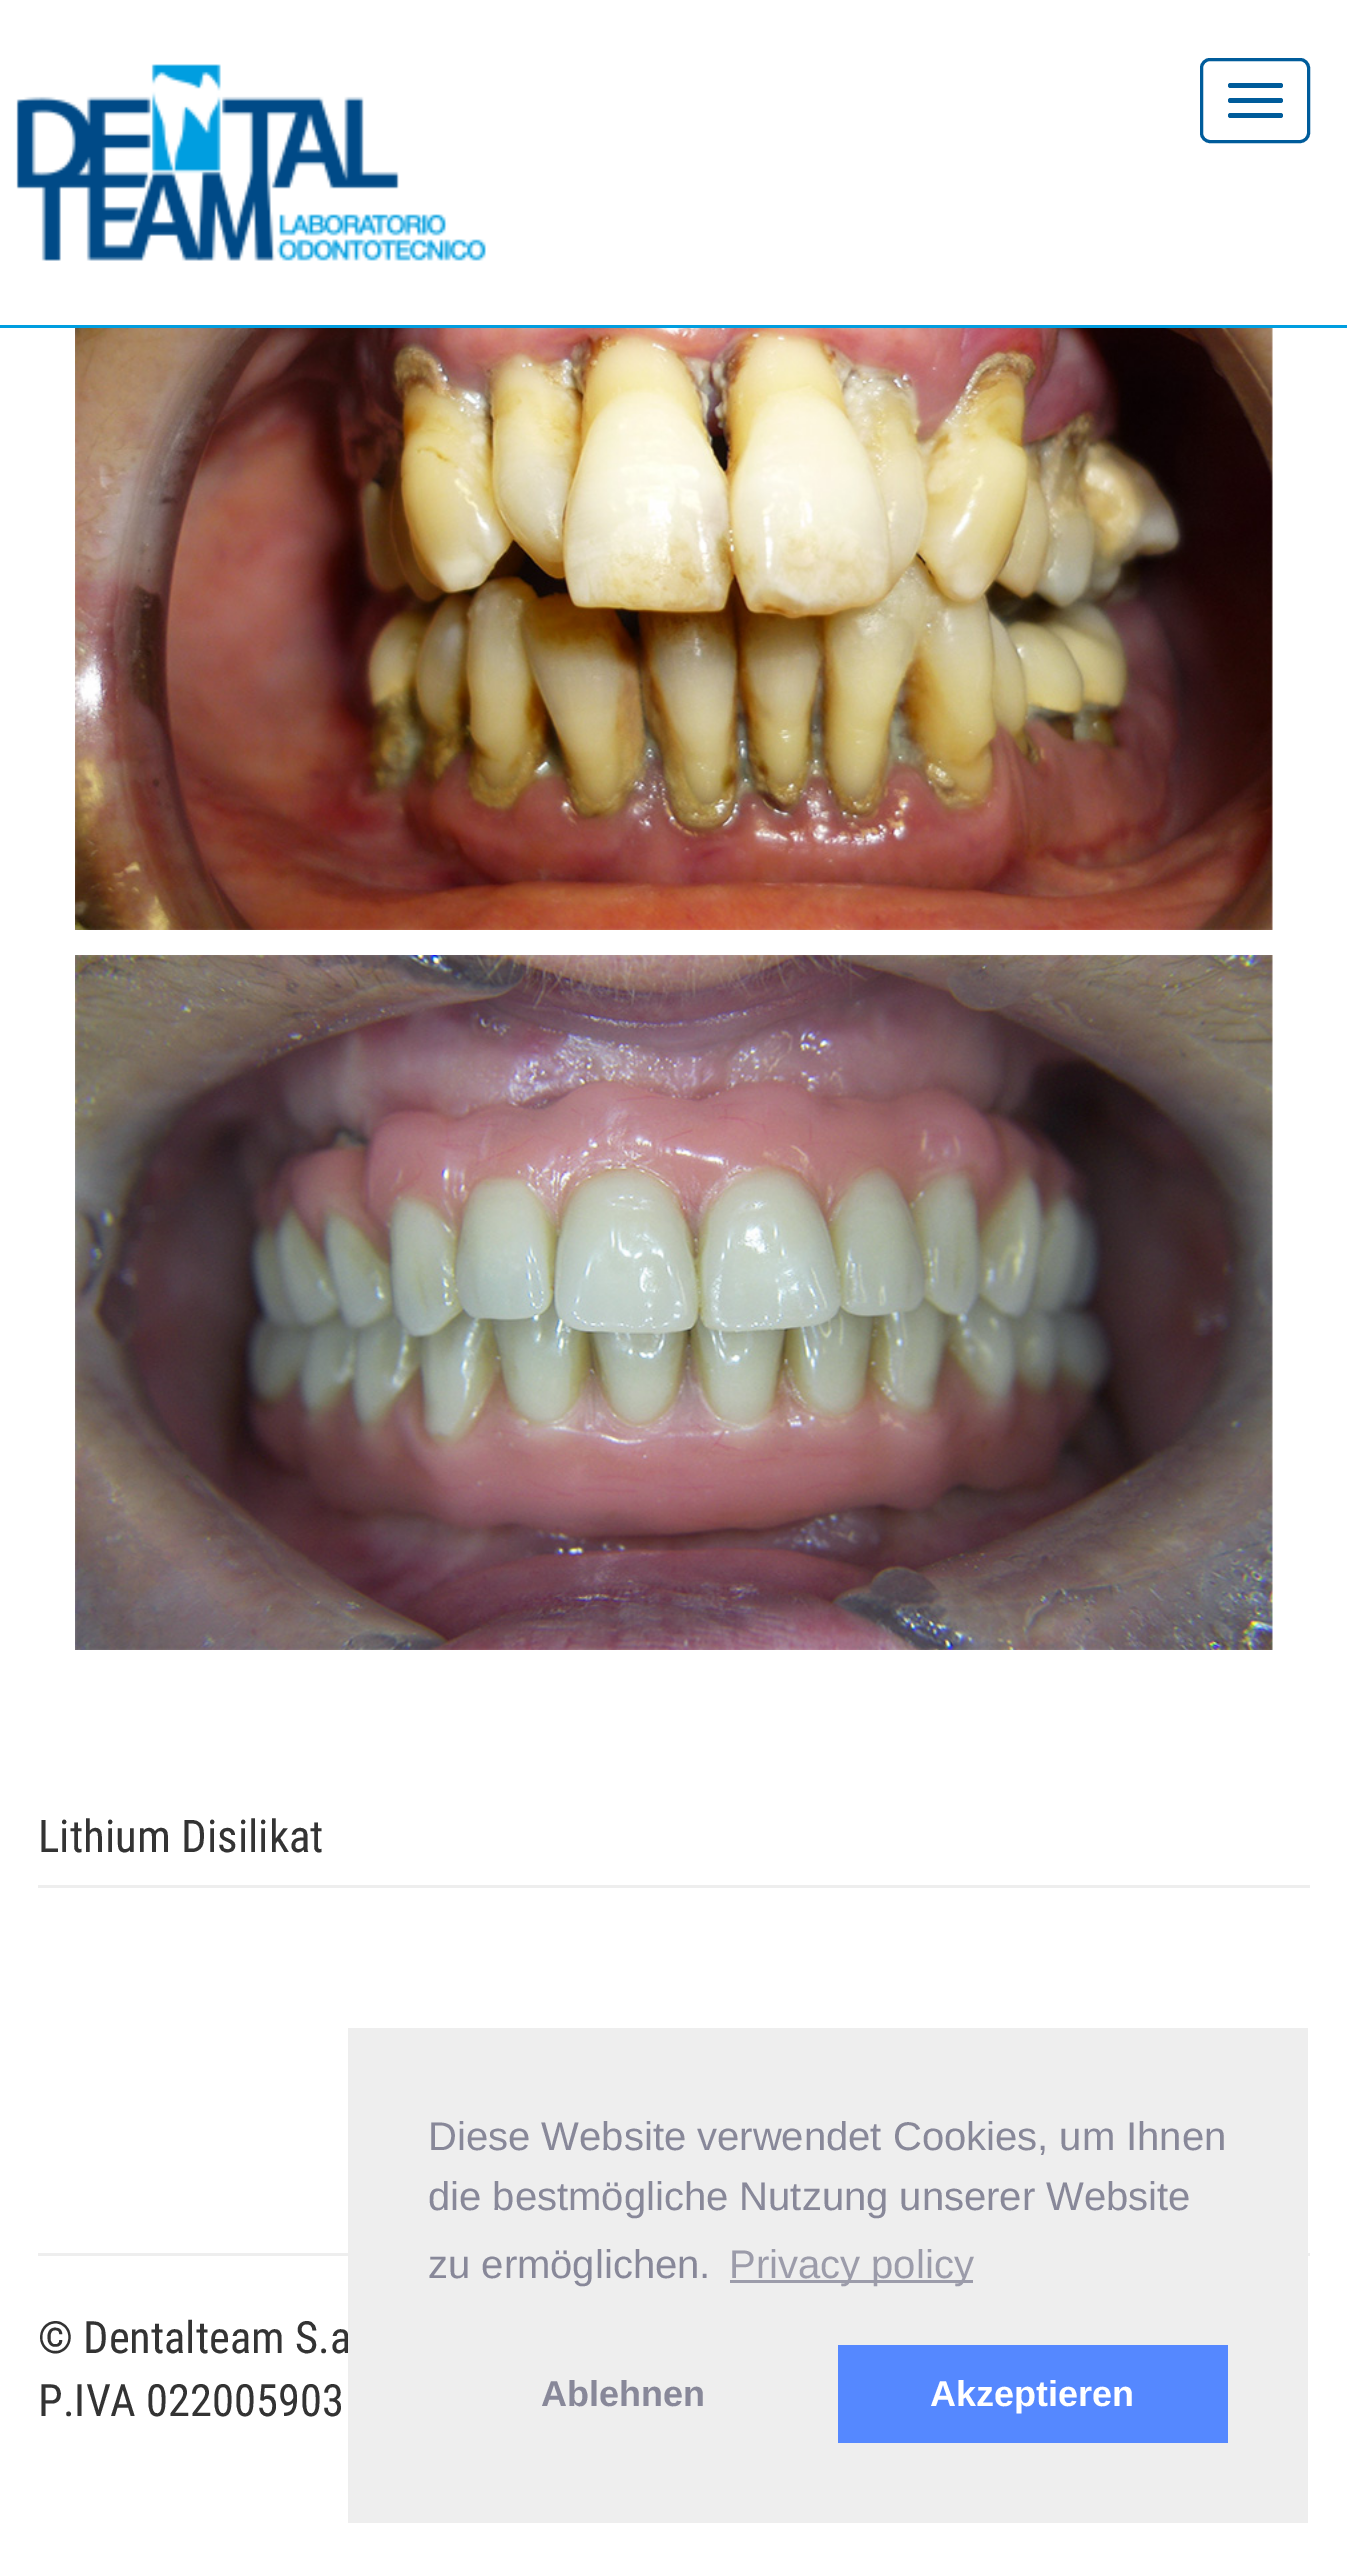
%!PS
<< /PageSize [1347 2561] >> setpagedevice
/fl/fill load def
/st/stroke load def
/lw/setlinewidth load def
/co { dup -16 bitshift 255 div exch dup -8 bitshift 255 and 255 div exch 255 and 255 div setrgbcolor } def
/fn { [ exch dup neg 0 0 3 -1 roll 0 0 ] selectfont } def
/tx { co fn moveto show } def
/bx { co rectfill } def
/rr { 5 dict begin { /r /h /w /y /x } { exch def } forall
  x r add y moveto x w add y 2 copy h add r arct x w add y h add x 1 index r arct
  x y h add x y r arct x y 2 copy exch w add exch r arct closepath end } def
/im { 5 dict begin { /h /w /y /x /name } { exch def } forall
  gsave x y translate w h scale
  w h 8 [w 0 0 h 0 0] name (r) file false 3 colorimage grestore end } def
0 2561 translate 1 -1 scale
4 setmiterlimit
0 0 1347 2561 16#FFFFFF bx
0 325 1347 3 16#009EE0 bx
(media/1.raw) 16 64 470 197 im
16#005C9B co
3 lw
1201.5 59.5 107 82 8.5 rr st
1228 83 55 5 2.5 rr fl
1228 98 55 5 2.5 rr fl
1228 113 55 5 2.5 rr fl
(media/2.raw) 75 328 1198 602 im
(media/3.raw) 75 955 1198 695 im
38 1885 1272 3 16#EEEEEE bx
38 2253 1272 3 16#EEEEEE bx
(Lithium Disilikat) 38 1852 /RobotoCondensed-Regular 45 16#333333 tx
(© Dentalteam S.a) 38 2353 /RobotoCondensed-Regular 44.5 16#333333 tx
(P.IVA 022005903) 38 2416 /RobotoCondensed-Regular 44.5 16#333333 tx
348 2028 960 495 16#EEEEEE bx
(Diese Website verwendet Cookies, um Ihnen) 428 2150 /LiberationSans-Regular 40 16#888899 tx
(die bestmögliche Nutzung unserer Website) 428 2210 /LiberationSans-Regular 40 16#888899 tx
(zu ermöglichen.) 428 2278 /LiberationSans-Regular 40 16#888899 tx
730 2280 243 3 16#9C9CAA bx
(Privacy policy) 729 2278 /LiberationSans-Regular 40 16#9C9CAA tx
(Ablehnen) 541 2406 /LiberationSans-Bold 36 16#888899 tx
838 2345 390 98 16#5588FF bx
(Akzeptieren) 930 2406 /LiberationSans-Bold 36 16#FFFFFF tx
showpage
